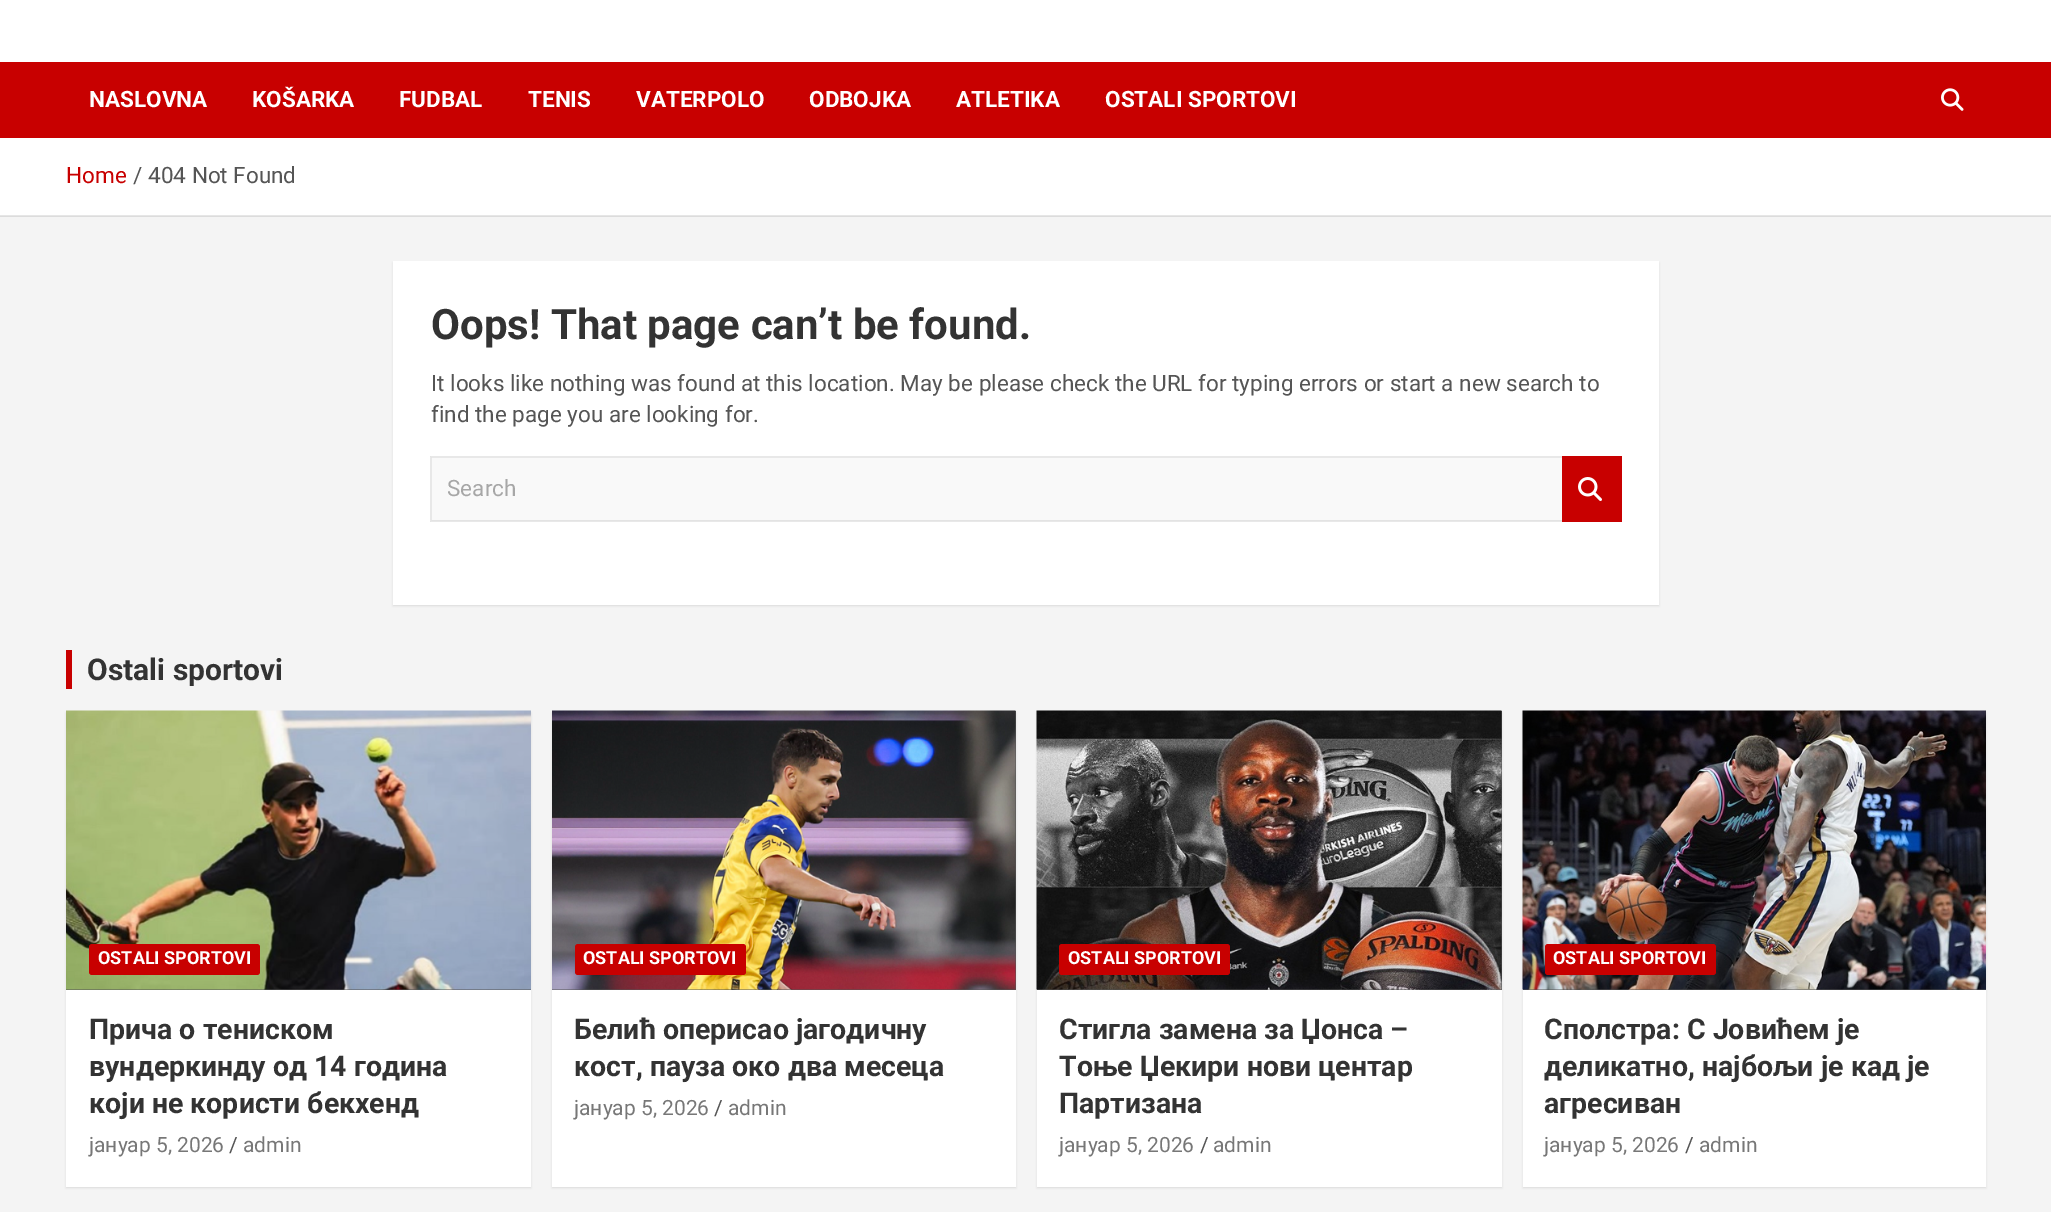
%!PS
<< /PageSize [2051 1212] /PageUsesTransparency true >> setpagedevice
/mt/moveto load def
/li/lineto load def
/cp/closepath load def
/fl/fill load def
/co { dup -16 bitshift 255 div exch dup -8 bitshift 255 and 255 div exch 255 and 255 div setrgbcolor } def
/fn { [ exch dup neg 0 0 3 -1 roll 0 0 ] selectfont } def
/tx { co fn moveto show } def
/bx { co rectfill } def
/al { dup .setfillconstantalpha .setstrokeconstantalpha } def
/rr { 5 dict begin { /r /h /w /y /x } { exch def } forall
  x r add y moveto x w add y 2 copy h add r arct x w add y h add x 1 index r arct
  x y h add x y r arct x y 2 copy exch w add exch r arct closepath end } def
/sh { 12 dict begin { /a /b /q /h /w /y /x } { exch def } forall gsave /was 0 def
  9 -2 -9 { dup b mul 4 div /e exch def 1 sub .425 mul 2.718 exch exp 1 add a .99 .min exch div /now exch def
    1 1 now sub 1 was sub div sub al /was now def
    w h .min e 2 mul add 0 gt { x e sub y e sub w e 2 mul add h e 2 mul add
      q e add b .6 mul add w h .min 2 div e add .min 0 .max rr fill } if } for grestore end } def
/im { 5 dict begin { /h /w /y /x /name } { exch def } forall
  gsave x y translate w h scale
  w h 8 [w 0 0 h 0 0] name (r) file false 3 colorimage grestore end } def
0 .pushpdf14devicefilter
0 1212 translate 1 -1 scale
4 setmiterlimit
0 0 2051 1212 16#F4F4F4 bx
0 216 2051 1 16#DCDCDC bx
0 0 2051 62 16#FFFFFF bx
0 62 2051 76 16#C80000 bx
(media/1.raw) 1941 88 23 23 im
0 138 2051 77 16#FFFFFF bx
0 215 2051 1 16#E6E6E6 bx
16#000000 co
393 263 1266 343 0 1 .1 sh
393 261 1266 344 16#FFFFFF bx
432 458 1130 63 16#F9F9F9 bx
16#E8E8E8 co
430 456 mt 1562 456 li 1562 458 li 432 458 li cp fl
0.09 al
16#000000 co
1562 522 mt 430 522 li 432 520 li 1562 520 li cp fl
430 522 mt 430 456 li 432 458 li 432 520 li cp fl
1 al
1562 456 60 66 16#C80000 bx
(media/2.raw) 1578 477 24 24 im
66 650 6 39 16#C80000 bx
16#000000 co
66 713 465 475 0 1 .1 sh
66 990 465 197 16#FFFFFF bx
66 989 465 1 16#555555 bx
(media/3.raw) 66 710 465 280 im
16#C80000 co
89 944 171 31 3 rr fl
16#000000 co
552 713 464 475 0 1 .1 sh
552 990 464 197 16#FFFFFF bx
552 711 464 279 16#555555 bx
(media/4.raw) 552 710 464 280 im
16#C80000 co
575 944 171 31 3 rr fl
16#000000 co
1037 713 465 475 0 1 .1 sh
1037 990 465 197 16#FFFFFF bx
1037 711 465 279 16#555555 bx
(media/5.raw) 1036 710 466 280 im
16#C80000 co
1059 944 171 31 3 rr fl
16#000000 co
1523 713 463 475 0 1 .1 sh
1523 990 463 197 16#FFFFFF bx
1523 989 463 1 16#555555 bx
(media/6.raw) 1522 710 464 280 im
16#C80000 co
1545 944 171 31 3 rr fl
(NASLOVNA) 89 107 /Roboto-Bold 22.5 16#FFFFFF tx
(KOŠARKA) 252 107 /Roboto-Bold 22.5 16#FFFFFF tx
(FUDBAL) 399 107 /Roboto-Bold 22.5 16#FFFFFF tx
(TENIS) 528 107 /Roboto-Bold 22.5 16#FFFFFF tx
(VATERPOLO) 636 107 /Roboto-Bold 22.5 16#FFFFFF tx
(ODBOJKA) 809 107 /Roboto-Bold 22.5 16#FFFFFF tx
(ATLETIKA) 956 107 /Roboto-Bold 22.5 16#FFFFFF tx
(OSTALI SPORTOVI) 1105 107 /Roboto-Bold 22.5 16#FFFFFF tx
(Home) 66 183 /Roboto-Regular 22.5 16#C80000 tx
(/) 133 183 /Roboto-Regular 22.5 16#555555 tx
(404 Not Found) 148 183 /Roboto-Regular 22.5 16#555555 tx
(Oops! That page can’t be found.) 431 339 /Roboto-Bold 42 16#333333 tx
(It looks like nothing was found at this location. May be please check the URL for typing errors or start a new search to) 431 391 /Roboto-Regular 22.5 16#555555 tx
(find the page you are looking for.) 431 422 /Roboto-Regular 22.5 16#555555 tx
(Search) 447 496 /Roboto-Regular 22.5 16#A7A7A7 tx
(Ostali sportovi) 87 680 /Roboto-Bold 30 16#333333 tx
(OSTALI SPORTOVI) 98 964 /Roboto-Bold 18 16#FFFFFF tx
(Прича о тениском) 89 1039 /Roboto-Bold 28.5 16#333333 tx
(вундеркинду од 14 година) 89 1076 /Roboto-Bold 28.5 16#333333 tx
(који не користи бекхенд) 89 1113 /Roboto-Bold 28.5 16#333333 tx
(јануар 5, 2026) 89 1152 /Roboto-Regular 21 16#777777 tx
(/) 229 1152 /Roboto-Regular 21 16#555555 tx
(admin) 243 1152 /Roboto-Regular 21 16#777777 tx
(OSTALI SPORTOVI) 583 964 /Roboto-Bold 18 16#FFFFFF tx
(Белић оперисао јагодичну) 574 1039 /Roboto-Bold 28.5 16#333333 tx
(кост, пауза око два месеца) 574 1076 /Roboto-Bold 28.5 16#333333 tx
(јануар 5, 2026) 574 1115 /Roboto-Regular 21 16#777777 tx
(/) 714 1115 /Roboto-Regular 21 16#555555 tx
(admin) 728 1115 /Roboto-Regular 21 16#777777 tx
(OSTALI SPORTOVI) 1068 964 /Roboto-Bold 18 16#FFFFFF tx
(Стигла замена за Џонса –) 1059 1039 /Roboto-Bold 28.5 16#333333 tx
(Тоње Џекири нови центар) 1059 1076 /Roboto-Bold 28.5 16#333333 tx
(Партизана) 1059 1113 /Roboto-Bold 28.5 16#333333 tx
(јануар 5, 2026) 1059 1152 /Roboto-Regular 21 16#777777 tx
(/) 1200 1152 /Roboto-Regular 21 16#555555 tx
(admin) 1213 1152 /Roboto-Regular 21 16#777777 tx
(OSTALI SPORTOVI) 1553 964 /Roboto-Bold 18 16#FFFFFF tx
(Сполстра: С Јовићем је) 1544 1039 /Roboto-Bold 28.5 16#333333 tx
(деликатно, најбољи је кад је) 1544 1076 /Roboto-Bold 28.5 16#333333 tx
(агресиван) 1544 1113 /Roboto-Bold 28.5 16#333333 tx
(јануар 5, 2026) 1544 1152 /Roboto-Regular 21 16#777777 tx
(/) 1685 1152 /Roboto-Regular 21 16#555555 tx
(admin) 1699 1152 /Roboto-Regular 21 16#777777 tx
.poppdf14devicefilter showpage
